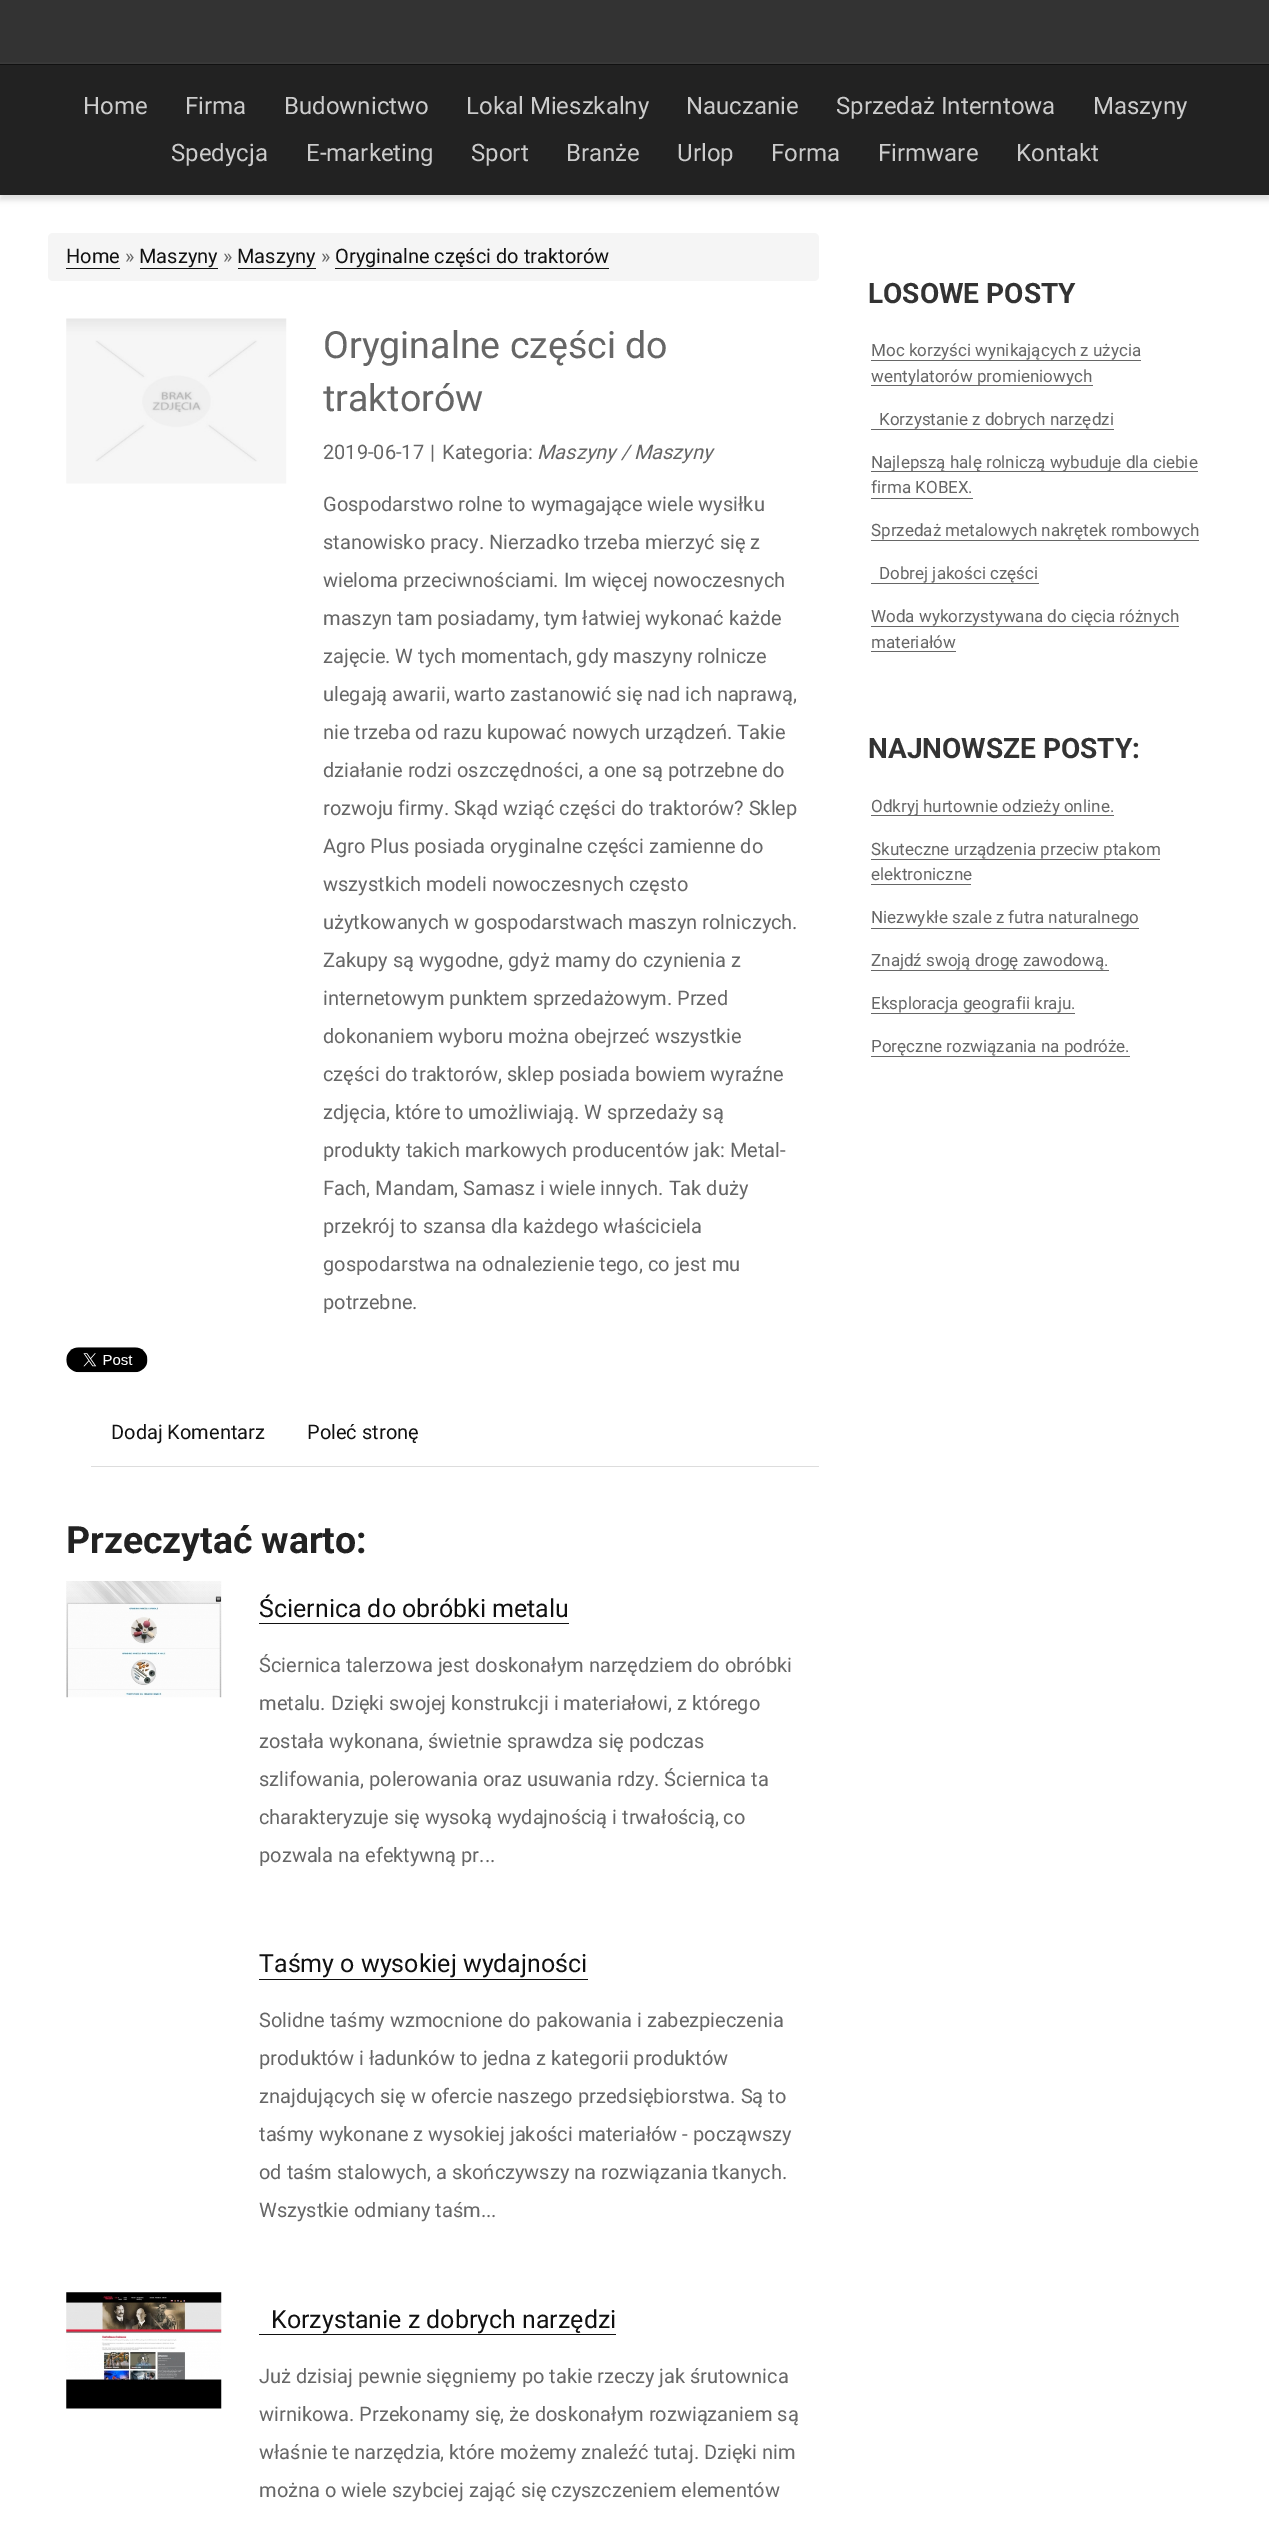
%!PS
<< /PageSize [1269 2523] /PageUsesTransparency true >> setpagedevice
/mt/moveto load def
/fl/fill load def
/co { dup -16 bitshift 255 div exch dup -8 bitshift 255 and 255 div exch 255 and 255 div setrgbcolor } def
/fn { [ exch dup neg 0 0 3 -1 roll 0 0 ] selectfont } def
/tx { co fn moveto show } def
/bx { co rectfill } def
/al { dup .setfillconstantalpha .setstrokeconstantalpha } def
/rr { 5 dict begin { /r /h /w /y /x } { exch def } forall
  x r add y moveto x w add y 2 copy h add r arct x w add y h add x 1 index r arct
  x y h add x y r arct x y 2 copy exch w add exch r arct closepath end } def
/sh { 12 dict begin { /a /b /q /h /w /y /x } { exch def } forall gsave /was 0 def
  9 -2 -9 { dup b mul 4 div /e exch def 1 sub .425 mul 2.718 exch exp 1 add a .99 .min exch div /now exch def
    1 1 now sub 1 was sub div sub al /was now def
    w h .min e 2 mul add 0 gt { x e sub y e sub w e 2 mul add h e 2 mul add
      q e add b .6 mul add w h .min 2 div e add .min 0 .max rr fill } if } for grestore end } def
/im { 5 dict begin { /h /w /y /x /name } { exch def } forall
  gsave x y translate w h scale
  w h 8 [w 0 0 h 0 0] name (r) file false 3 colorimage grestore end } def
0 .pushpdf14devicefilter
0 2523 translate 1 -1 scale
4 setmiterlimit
0 0 1269 2523 16#FFFFFF bx
0 0 1269 64 16#333333 bx
16#DDDDDD co
0 69 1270 131 0 3 1 sh
0 65 1269 130 16#222222 bx
0 64 1269 1 16#111111 bx
16#F5F5F5 co
48 233 771 48 5 rr fl
66 268 54 1 16#111111 bx
140 268 78 1 16#111111 bx
238 268 78 1 16#111111 bx
335 268 274 1 16#111111 bx
(media/1.raw) 66 318 221 166 im
(media/2.raw) 66 1347 82 26 im
91 1466 728 1 16#DDDDDD bx
(media/3.raw) 66 1581 156 117 im
259 1623 310 1 16#111111 bx
259 1979 329 1 16#111111 bx
(media/4.raw) 66 2292 156 117 im
259 2334 357 1 16#111111 bx
871 360 270 1 16#666666 bx
871 385 222 1 16#666666 bx
871 429 243 1 16#666666 bx
871 471 327 1 16#666666 bx
871 498 102 1 16#666666 bx
871 540 328 1 16#666666 bx
871 583 168 1 16#666666 bx
871 626 308 1 16#666666 bx
871 651 85 1 16#666666 bx
871 815 243 1 16#666666 bx
871 859 289 1 16#666666 bx
871 884 100 1 16#666666 bx
871 928 268 1 16#666666 bx
871 970 238 1 16#666666 bx
871 1013 204 1 16#666666 bx
871 1056 259 1 16#666666 bx
(Home) 83 114 /Roboto-Regular 24 16#CCCCCC tx
(Firma) 185 114 /Roboto-Regular 24 16#CCCCCC tx
(Budownictwo) 284 114 /Roboto-Regular 24 16#CCCCCC tx
(Lokal Mieszkalny) 466 114 /Roboto-Regular 24 16#CCCCCC tx
(Nauczanie) 686 114 /Roboto-Regular 24 16#CCCCCC tx
(Sprzedaż Interntowa) 836 114 /Roboto-Regular 24 16#CCCCCC tx
(Maszyny) 1093 114 /Roboto-Regular 24 16#CCCCCC tx
(Spedycja) 171 161 /Roboto-Regular 24 16#CCCCCC tx
(E-marketing) 306 161 /Roboto-Regular 24 16#CCCCCC tx
(Sport) 471 161 /Roboto-Regular 24 16#CCCCCC tx
(Branże) 566 161 /Roboto-Regular 24 16#CCCCCC tx
(Urlop) 677 161 /Roboto-Regular 24 16#CCCCCC tx
(Forma) 771 161 /Roboto-Regular 24 16#CCCCCC tx
(Firmware) 878 161 /Roboto-Regular 24 16#CCCCCC tx
(Kontakt) 1016 161 /Roboto-Regular 24 16#CCCCCC tx
(Home) 66 263 /Roboto-Regular 20 16#111111 tx
(») 125 263 /Roboto-Regular 20 16#666666 tx
(Maszyny) 139 263 /Roboto-Regular 20 16#111111 tx
(») 223 263 /Roboto-Regular 20 16#666666 tx
(Maszyny) 237 263 /Roboto-Regular 20 16#111111 tx
(») 321 263 /Roboto-Regular 20 16#666666 tx
(Oryginalne części do traktorów) 335 263 /Roboto-Regular 20 16#111111 tx
(Oryginalne części do) 323 358 /Roboto-Regular 37.5 16#666666 tx
(traktorów) 323 411 /Roboto-Regular 37.5 16#666666 tx
(2019-06-17) 323 459 /Roboto-Regular 20 16#666666 tx
(|) 430 459 /Roboto-Regular 20 16#666666 tx
(Kategoria:) 442 459 /Roboto-Regular 20 16#666666 tx
(Maszyny / Maszyny) 537 459 /Roboto-Italic 20 16#666666 tx
(Gospodarstwo rolne to wymagające wiele wysiłku) 323 511 /Roboto-Regular 20 16#666666 tx
(stanowisko pracy. Nierzadko trzeba mierzyć się z) 323 549 /Roboto-Regular 20 16#666666 tx
(wieloma przeciwnościami. Im więcej nowoczesnych) 323 587 /Roboto-Regular 20 16#666666 tx
(maszyn tam posiadamy, tym łatwiej wykonać każde) 323 625 /Roboto-Regular 20 16#666666 tx
(zajęcie. W tych momentach, gdy maszyny rolnicze) 323 663 /Roboto-Regular 20 16#666666 tx
(ulegają awarii, warto zastanowić się nad ich naprawą,) 323 701 /Roboto-Regular 20 16#666666 tx
(nie trzeba od razu kupować nowych urządzeń. Takie) 323 739 /Roboto-Regular 20 16#666666 tx
(działanie rodzi oszczędności, a one są potrzebne do) 323 777 /Roboto-Regular 20 16#666666 tx
(rozwoju firmy. Skąd wziąć części do traktorów? Sklep) 323 815 /Roboto-Regular 20 16#666666 tx
(Agro Plus posiada oryginalne części zamienne do) 323 853 /Roboto-Regular 20 16#666666 tx
(wszystkich modeli nowoczesnych często) 323 891 /Roboto-Regular 20 16#666666 tx
(użytkowanych w gospodarstwach maszyn rolniczych.) 323 929 /Roboto-Regular 20 16#666666 tx
(Zakupy są wygodne, gdyż mamy do czynienia z) 323 967 /Roboto-Regular 20 16#666666 tx
(internetowym punktem sprzedażowym. Przed) 323 1005 /Roboto-Regular 20 16#666666 tx
(dokonaniem wyboru można obejrzeć wszystkie) 323 1043 /Roboto-Regular 20 16#666666 tx
(części do traktorów, sklep posiada bowiem wyraźne) 323 1081 /Roboto-Regular 20 16#666666 tx
(zdjęcia, które to umożliwiają. W sprzedaży są) 323 1119 /Roboto-Regular 20 16#666666 tx
(produkty takich markowych producentów jak: Metal-) 323 1157 /Roboto-Regular 20 16#666666 tx
(Fach, Mandam, Samasz i wiele innych. Tak duży) 323 1195 /Roboto-Regular 20 16#666666 tx
(przekrój to szansa dla każdego właściciela) 323 1233 /Roboto-Regular 20 16#666666 tx
(gospodarstwa na odnalezienie tego, co jest mu) 323 1271 /Roboto-Regular 20 16#666666 tx
(potrzebne.) 323 1309 /Roboto-Regular 20 16#666666 tx
(Dodaj Komentarz) 111 1439 /Roboto-Regular 20 16#111111 tx
(Poleć stronę) 307 1439 /Roboto-Regular 20 16#111111 tx
/Roboto-Bold 37.5 fn
16#222222 co
66 1553 mt -.1 0 (Przeczytać warto:) ashow
(Ściernica do obróbki metalu) 259 1617 /Roboto-Regular 25 16#111111 tx
(Ściernica talerzowa jest doskonałym narzędziem do obróbki) 259 1672 /Roboto-Regular 20 16#666666 tx
(metalu. Dzięki swojej konstrukcji i materiałowi, z którego) 259 1710 /Roboto-Regular 20 16#666666 tx
(została wykonana, świetnie sprawdza się podczas) 259 1748 /Roboto-Regular 20 16#666666 tx
(szlifowania, polerowania oraz usuwania rdzy. Ściernica ta) 259 1786 /Roboto-Regular 20 16#666666 tx
(charakteryzuje się wysoką wydajnością i trwałością, co) 259 1824 /Roboto-Regular 20 16#666666 tx
(pozwala na efektywną pr...) 259 1862 /Roboto-Regular 20 16#666666 tx
(Taśmy o wysokiej wydajności) 259 1972 /Roboto-Regular 25 16#111111 tx
(Solidne taśmy wzmocnione do pakowania i zabezpieczenia) 259 2027 /Roboto-Regular 20 16#666666 tx
(produktów i ładunków to jedna z kategorii produktów) 259 2065 /Roboto-Regular 20 16#666666 tx
(znajdujących się w ofercie naszego przedsiębiorstwa. Są to) 259 2103 /Roboto-Regular 20 16#666666 tx
(taśmy wykonane z wysokiej jakości materiałów - począwszy) 259 2141 /Roboto-Regular 20 16#666666 tx
(od taśm stalowych, a skończywszy na rozwiązania tkanych.) 259 2179 /Roboto-Regular 20 16#666666 tx
(Wszystkie odmiany taśm...) 259 2217 /Roboto-Regular 20 16#666666 tx
(Korzystanie z dobrych narzędzi) 271 2328 /Roboto-Regular 25 16#111111 tx
(Już dzisiaj pewnie sięgniemy po takie rzeczy jak śrutownica) 259 2383 /Roboto-Regular 20 16#666666 tx
(wirnikowa. Przekonamy się, że doskonałym rozwiązaniem są) 259 2421 /Roboto-Regular 20 16#666666 tx
(właśnie te narzędzia, które możemy znaleźć tutaj. Dzięki nim) 259 2459 /Roboto-Regular 20 16#666666 tx
(można o wiele szybciej zająć się czyszczeniem elementów) 259 2497 /Roboto-Regular 20 16#666666 tx
(LOSOWE POSTY) 868 303 /Roboto-Bold 28 16#333333 tx
(Moc korzyści wynikających z użycia) 871 356 /Roboto-Regular 17 16#666666 tx
(wentylatorów promieniowych) 871 382 /Roboto-Regular 17 16#666666 tx
(Korzystanie z dobrych narzędzi) 879 425 /Roboto-Regular 17 16#666666 tx
(Najlepszą halę rolniczą wybuduje dla ciebie) 871 468 /Roboto-Regular 17 16#666666 tx
(firma KOBEX.) 871 493 /Roboto-Regular 17 16#666666 tx
(Sprzedaż metalowych nakrętek rombowych) 871 536 /Roboto-Regular 17 16#666666 tx
(Dobrej jakości części) 879 579 /Roboto-Regular 17 16#666666 tx
(Woda wykorzystywana do cięcia różnych) 871 622 /Roboto-Regular 17 16#666666 tx
(materiałów) 871 648 /Roboto-Regular 17 16#666666 tx
(NAJNOWSZE POSTY:) 868 758 /Roboto-Bold 28 16#333333 tx
(Odkryj hurtownie odzieży online.) 871 812 /Roboto-Regular 17 16#666666 tx
(Skuteczne urządzenia przeciw ptakom) 871 855 /Roboto-Regular 17 16#666666 tx
(elektroniczne) 871 880 /Roboto-Regular 17 16#666666 tx
(Niezwykłe szale z futra naturalnego) 871 923 /Roboto-Regular 17 16#666666 tx
(Znajdź swoją drogę zawodową.) 871 966 /Roboto-Regular 17 16#666666 tx
(Eksploracja geografii kraju.) 871 1009 /Roboto-Regular 17 16#666666 tx
(Poręczne rozwiązania na podróże.) 871 1052 /Roboto-Regular 17 16#666666 tx
.poppdf14devicefilter showpage
